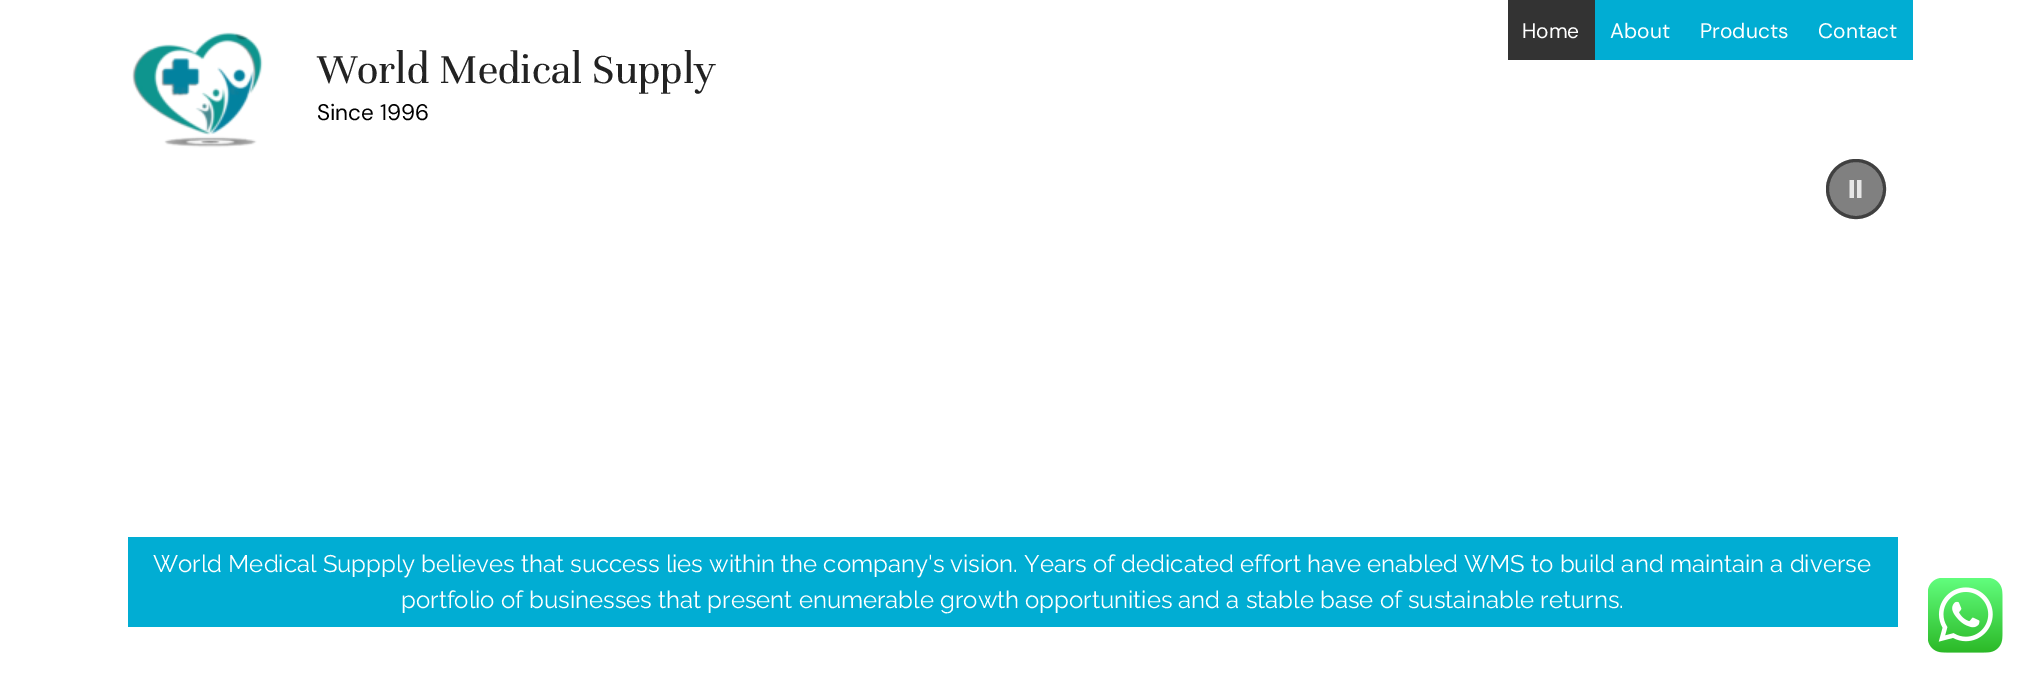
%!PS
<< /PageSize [2025 674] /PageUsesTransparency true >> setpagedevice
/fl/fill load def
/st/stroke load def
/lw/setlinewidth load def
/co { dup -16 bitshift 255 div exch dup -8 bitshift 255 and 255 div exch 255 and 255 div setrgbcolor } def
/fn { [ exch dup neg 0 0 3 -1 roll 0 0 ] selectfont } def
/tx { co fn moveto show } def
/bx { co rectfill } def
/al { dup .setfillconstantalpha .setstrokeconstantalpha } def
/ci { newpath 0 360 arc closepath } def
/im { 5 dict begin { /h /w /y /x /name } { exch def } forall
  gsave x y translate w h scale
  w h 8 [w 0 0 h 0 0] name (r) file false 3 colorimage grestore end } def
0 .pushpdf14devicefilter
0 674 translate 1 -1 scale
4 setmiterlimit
0 0 2025 674 16#FFFFFF bx
1595 0 318 60 16#01ADD3 bx
1508 0 87 60 16#333333 bx
(media/1.raw) 132 32 131 116 im
16#808080 co
1856 189 30 ci fl
0.5 al
16#000000 co
3 lw
1856 189 28.5 ci st
1 al
(media/2.raw) 1849 180 13 18 im
128 537 1770 90 16#01ADD3 bx
(media/3.raw) 1928 578 75 75 im
(Home) 1522 38 /DMSans-Regular 21 16#FFFFFF tx
(About) 1610 38 /DMSans-Regular 21 16#FFFFFF tx
(Products) 1700 38 /DMSans-Regular 21 16#FFFFFF tx
(Contact) 1818 38 /DMSans-Regular 21 16#FFFFFF tx
(World Medical Supply) 317 83 /Unna-Regular 45 16#222222 tx
(Since 1996) 317 120 /DMSans-Regular 22.5 16#000000 tx
(World Medical Suppply believes that success lies within the company's vision. Years of dedicated effort have enabled WMS to build and maintain a diverse) 153 572 /Raleway-Regular 24 16#FFFFFF tx
(portfolio of businesses that present enumerable growth opportunities and a stable base of sustainable returns.) 401 608 /Raleway-Regular 24 16#FFFFFF tx
.poppdf14devicefilter showpage
